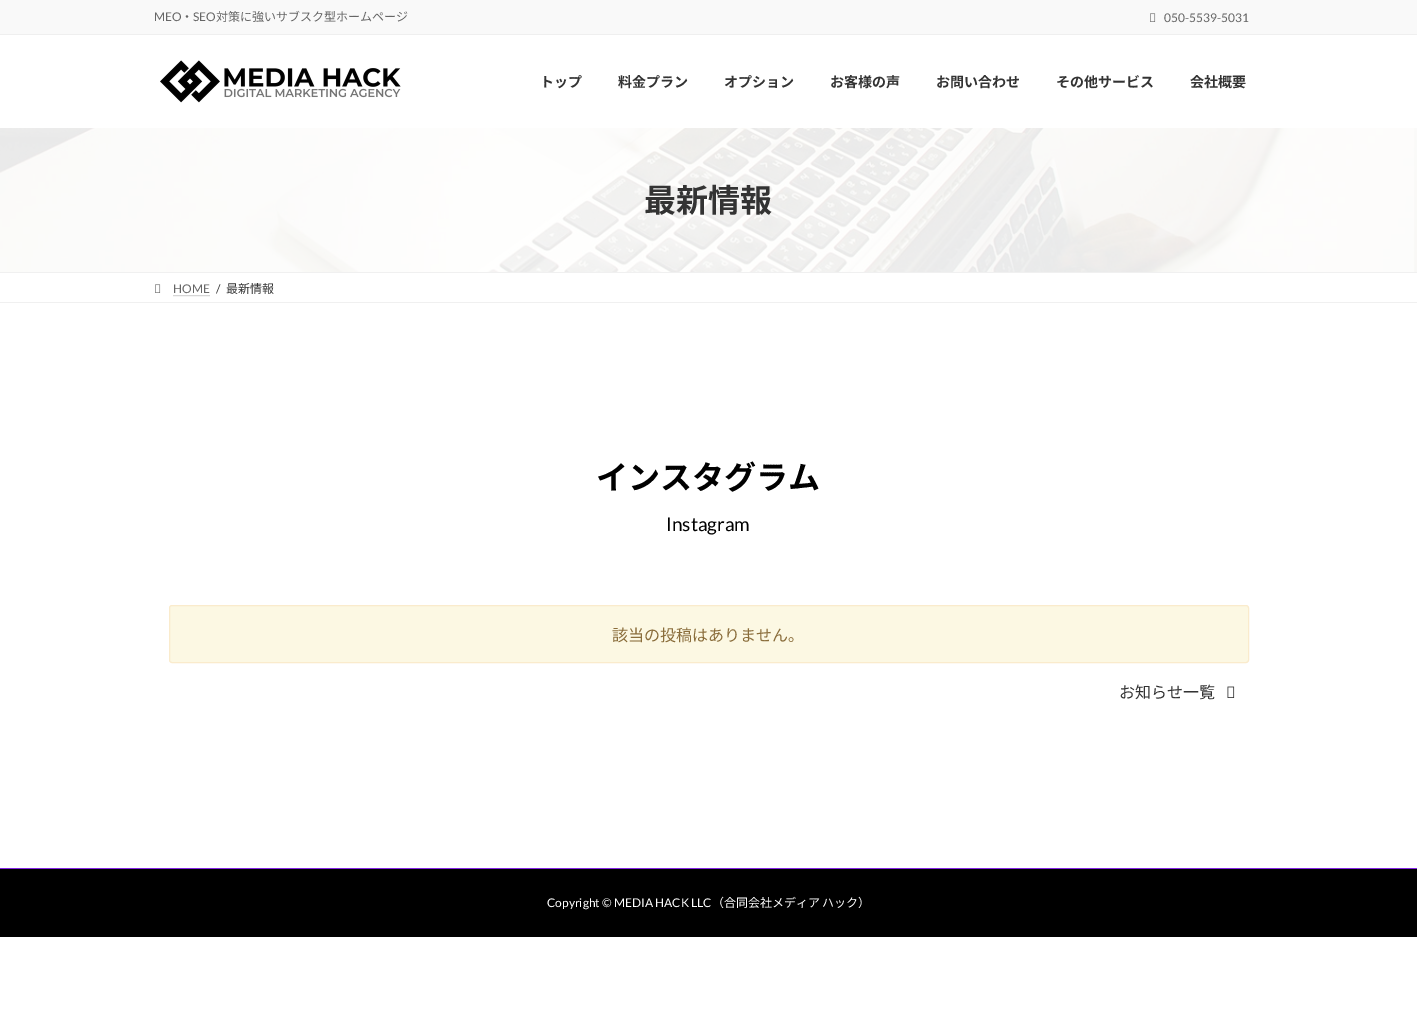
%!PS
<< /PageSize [1417 1030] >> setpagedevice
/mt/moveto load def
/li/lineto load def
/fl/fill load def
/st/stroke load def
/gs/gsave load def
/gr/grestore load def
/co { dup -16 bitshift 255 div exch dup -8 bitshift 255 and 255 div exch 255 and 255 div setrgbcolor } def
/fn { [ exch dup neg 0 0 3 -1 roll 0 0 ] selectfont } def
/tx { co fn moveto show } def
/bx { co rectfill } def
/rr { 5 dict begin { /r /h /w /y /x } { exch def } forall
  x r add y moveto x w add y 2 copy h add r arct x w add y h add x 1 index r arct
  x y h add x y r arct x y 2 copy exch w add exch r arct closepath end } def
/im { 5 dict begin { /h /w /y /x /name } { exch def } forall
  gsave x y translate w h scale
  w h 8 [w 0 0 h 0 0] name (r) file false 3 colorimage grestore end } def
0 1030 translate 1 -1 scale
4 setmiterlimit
0 0 1417 1030 16#FFFFFF bx
0 0 1417 34 16#F9F9F9 bx
0 34 1417 1 16#EFEFEF bx
(media/1.raw) 1150 13 6 9 im
(media/2.raw) 160 60 241 43 im
(media/3.raw) 0 128 1417 144 im
0 272 1417 1 16#F0F0F0 bx
0 302 1417 1 16#F0F0F0 bx
(media/4.raw) 155 284 6 9 im
16#B3B3B3 co
[1 1] 0 setdash
173.5 295.5 mt 210 295.5 li st
16#FCF8E3 co
169.5 605.5 1079 57 2.5 rr gs fl gr
16#FAEBCC co
[] 0 setdash
st
(media/5.raw) 1227 686 8 12 im
0 869 1417 68 16#000000 bx
0 868 1417 1 16#8224E3 bx
(MEO) 154 21 /Lato-Regular 12 16#666666 tx
(・) 181 21 /NotoSansJP-Regular 12 16#666666 tx
(SEO) 193 21 /Lato-Regular 12 16#666666 tx
(対策に強いサブスク型ホームページ) 216 21 /NotoSansJP-Regular 12 16#666666 tx
(050-5539-5031) 1164 22 /Lato-Regular 12 16#666666 tx
(トップ) 540 87 /NotoSansJP-Bold 14 16#333333 tx
(料金プラン) 618 87 /NotoSansJP-Bold 14 16#333333 tx
(オプション) 724 87 /NotoSansJP-Bold 14 16#333333 tx
(お客様の声) 830 87 /NotoSansJP-Bold 14 16#333333 tx
(お問い合わせ) 936 87 /NotoSansJP-Bold 14 16#333333 tx
(その他サービス) 1056 87 /NotoSansJP-Bold 14 16#333333 tx
(会社概要) 1190 87 /NotoSansJP-Bold 14 16#333333 tx
(最新情報) 644 212 /NotoSansJP-Bold 32 16#333333 tx
(HOME) 173 293 /Lato-Regular 12 16#666666 tx
(/) 216 293 /Lato-Regular 12 16#333333 tx
(最新情報) 226 293 /NotoSansJP-Regular 12 16#333333 tx
(インスタグラム) 596 489 /NotoSansJP-Bold 32 16#000000 tx
(Instagram) 666 531 /Lato-Regular 19 16#000000 tx
(該当の投稿はありません。) 612 641 /NotoSansJP-Regular 16 16#8A6D3B tx
(お知らせ一覧) 1119 698 /NotoSansJP-Regular 16 16#333333 tx
(Copyright © MEDIA HACK LLC) 547 907 /Lato-Regular 12 16#FFFFFF tx
(（合同会社メディア) 712 907 /NotoSansJP-Regular 12 16#FFFFFF tx
(ハック）) 822 907 /NotoSansJP-Regular 12 16#FFFFFF tx
showpage
